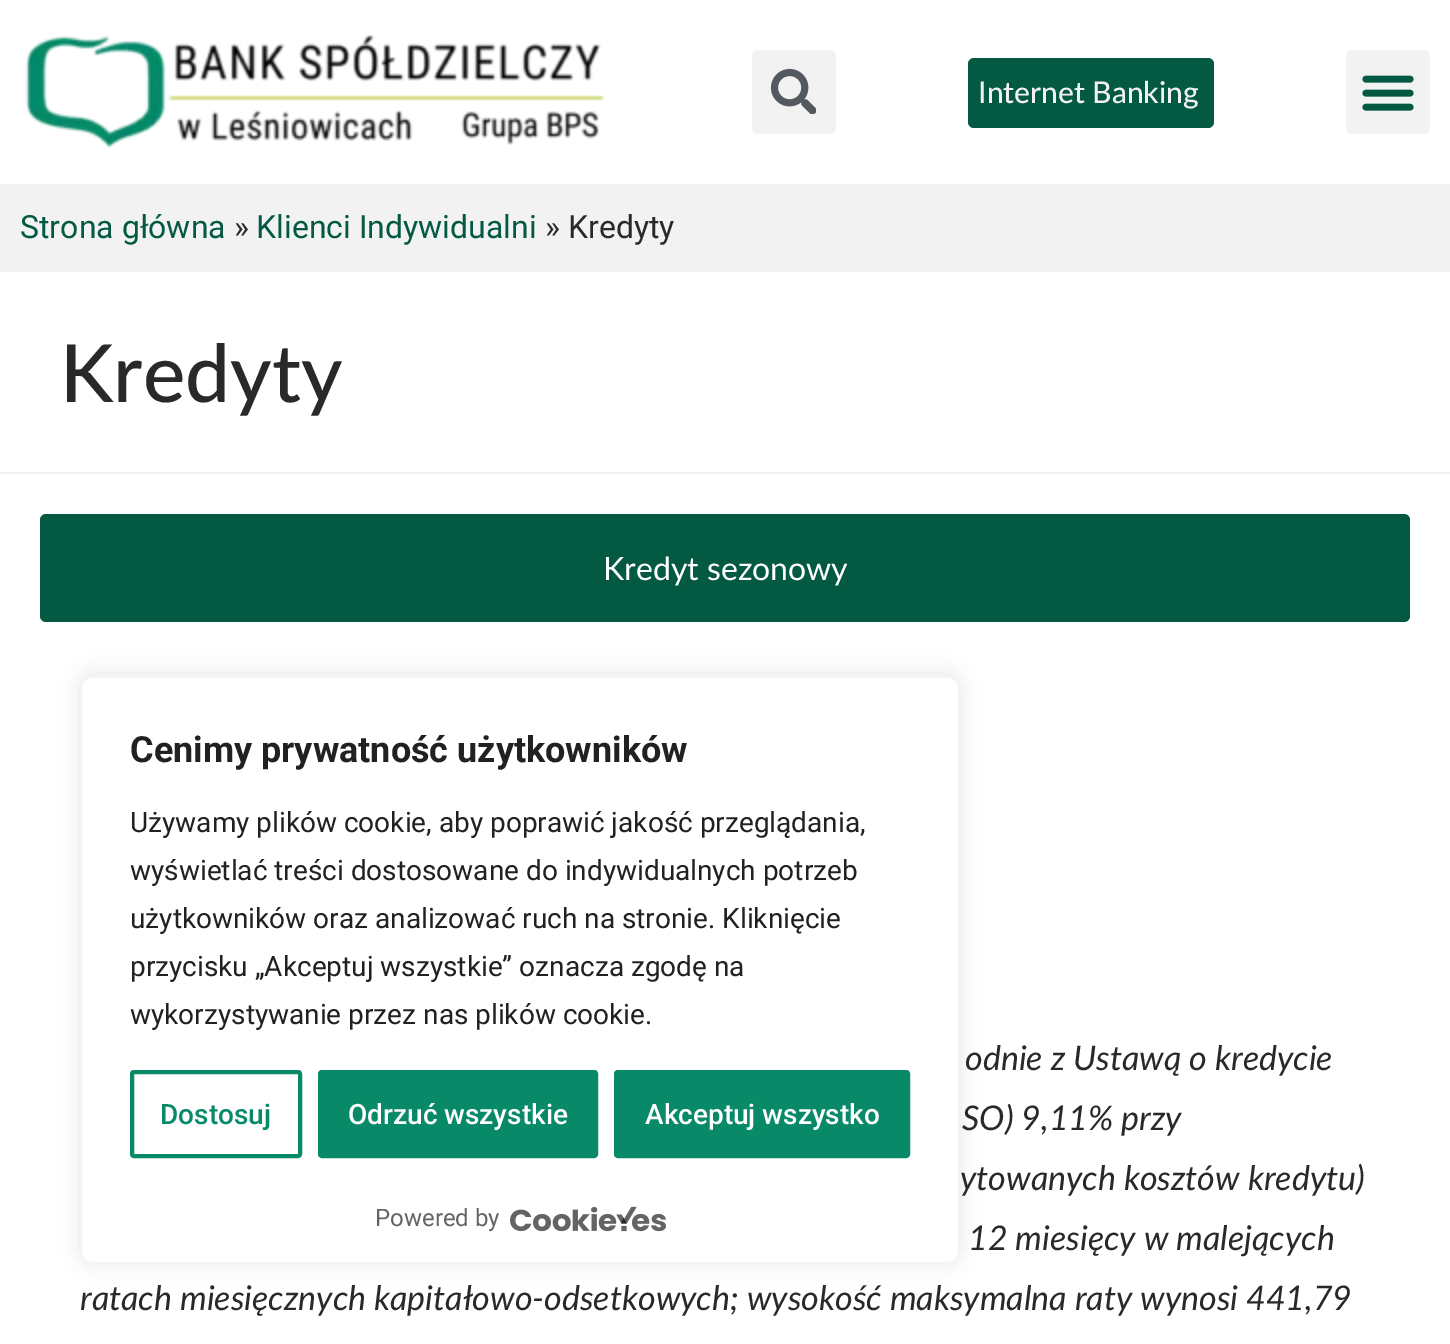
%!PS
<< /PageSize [1450 1344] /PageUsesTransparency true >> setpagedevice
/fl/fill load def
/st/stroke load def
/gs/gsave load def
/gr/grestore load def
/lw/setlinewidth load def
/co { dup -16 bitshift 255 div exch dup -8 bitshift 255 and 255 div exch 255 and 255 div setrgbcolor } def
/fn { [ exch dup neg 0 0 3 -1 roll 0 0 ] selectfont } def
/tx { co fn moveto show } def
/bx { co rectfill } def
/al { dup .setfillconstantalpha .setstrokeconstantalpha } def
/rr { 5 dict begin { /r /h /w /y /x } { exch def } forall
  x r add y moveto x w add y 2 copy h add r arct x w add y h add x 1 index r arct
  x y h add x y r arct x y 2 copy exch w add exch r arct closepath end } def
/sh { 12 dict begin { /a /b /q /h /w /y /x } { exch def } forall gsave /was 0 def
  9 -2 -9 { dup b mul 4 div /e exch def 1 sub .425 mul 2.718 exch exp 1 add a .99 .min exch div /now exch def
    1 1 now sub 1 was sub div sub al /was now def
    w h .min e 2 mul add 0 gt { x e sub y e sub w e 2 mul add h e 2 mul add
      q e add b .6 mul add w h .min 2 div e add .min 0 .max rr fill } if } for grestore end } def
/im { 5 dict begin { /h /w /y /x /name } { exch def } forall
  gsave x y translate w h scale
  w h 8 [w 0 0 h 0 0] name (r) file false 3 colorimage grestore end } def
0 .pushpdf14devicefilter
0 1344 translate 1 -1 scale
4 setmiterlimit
0 0 1450 1344 16#FFFFFF bx
(media/1.raw) 25 35 580 114 im
16#F2F2F2 co
752 50 84 84 6 rr fl
(media/2.raw) 770 68 46 46 im
16#035941 co
968 58 246 70 6 rr fl
16#F2F2F2 co
1346 50 84 84 6 rr fl
(media/3.raw) 1362 75 52 36 im
0 184 1450 88 16#F2F2F2 bx
0 472 1450 2 16#F2F2F2 bx
16#035941 co
40 514 1370 108 6 rr fl
16#ACABAB co
80 674 880 588 12 10 .3 sh
16#FFFFFF co
81 677 878 586 11 rr gs fl gr
16#F4F4F4 co
2 lw
st
16#088968 co
4 lw
132 1072 168 84 2 rr st
320 1072 276 84 2 rr gs fl gr
st
616 1072 292 84 2 rr gs fl gr
st
(media/4.raw) 510 1206 156 26 im
(Internet Banking) 978 103 /Lato-Medium 30 16#F2F2F2 tx
(Strona główna) 20 238 /Roboto-Regular 32 16#035941 tx
(») 234 238 /Roboto-Regular 32 16#292929 tx
(Klienci Indywidualni) 256 238 /Roboto-Regular 32 16#035941 tx
(» Kredyty) 545 238 /Roboto-Regular 32 16#292929 tx
(Kredyty) 60 402 /Lato-Medium 80 16#292929 tx
(Kredyt sezonowy) 603 580 /Lato-Regular 32 16#FFFFFF tx
(odnie z Ustawą o kredycie) 965 1070 /Lato-Italic 34 16#292929 tx
(SO\) 9,11% przy) 962 1130 /Lato-Italic 34 16#292929 tx
(ytowanych kosztów kredytu\)) 960 1190 /Lato-Italic 34 16#292929 tx
(12 miesięcy w malejących) 968 1250 /Lato-Italic 34 16#292929 tx
(ratach miesięcznych kapitałowo-odsetkowych; wysokość maksymalna raty wynosi 441,79) 80 1310 /Lato-Italic 34 16#292929 tx
(Cenimy prywatność użytkowników) 130 762 /Roboto-Bold 36 16#212121 tx
(Używamy plików cookie, aby poprawić jakość przeglądania,) 130 832 /Roboto-Regular 28 16#212121 tx
(wyświetlać treści dostosowane do indywidualnych potrzeb) 130 880 /Roboto-Regular 28 16#212121 tx
(użytkowników oraz analizować ruch na stronie. Kliknięcie) 130 928 /Roboto-Regular 28 16#212121 tx
(przycisku „Akceptuj wszystkie” oznacza zgodę na) 130 976 /Roboto-Regular 28 16#212121 tx
(wykorzystywanie przez nas plików cookie.) 130 1024 /Roboto-Regular 28 16#212121 tx
(Dostosuj) 160 1124 /Roboto-Medium 28 16#088968 tx
(Odrzuć wszystkie) 348 1124 /Roboto-Medium 28 16#FFFFFF tx
(Akceptuj wszystko) 645 1124 /Roboto-Medium 28 16#FFFFFF tx
(Powered by) 375 1226 /Roboto-Regular 24 16#646464 tx
.poppdf14devicefilter showpage
